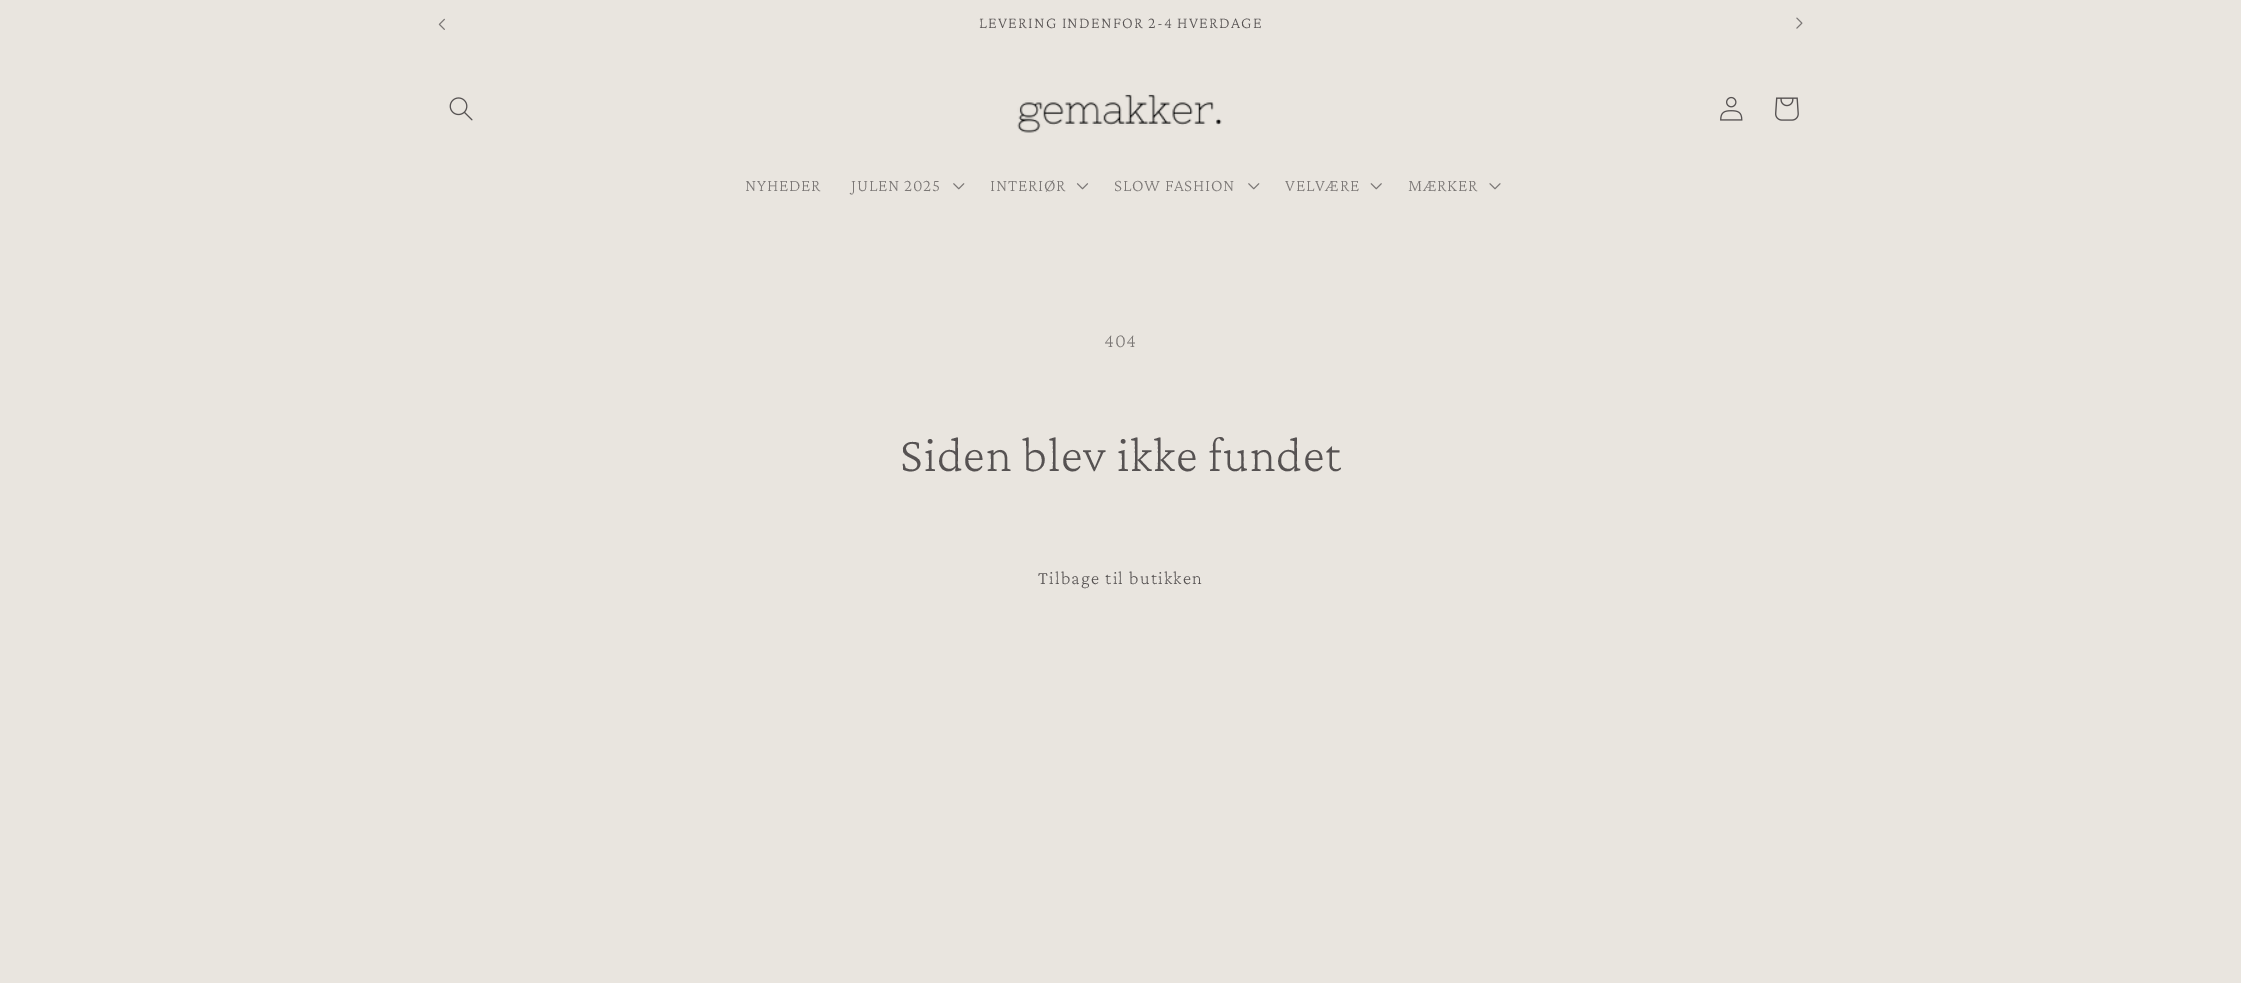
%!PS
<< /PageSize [2241 983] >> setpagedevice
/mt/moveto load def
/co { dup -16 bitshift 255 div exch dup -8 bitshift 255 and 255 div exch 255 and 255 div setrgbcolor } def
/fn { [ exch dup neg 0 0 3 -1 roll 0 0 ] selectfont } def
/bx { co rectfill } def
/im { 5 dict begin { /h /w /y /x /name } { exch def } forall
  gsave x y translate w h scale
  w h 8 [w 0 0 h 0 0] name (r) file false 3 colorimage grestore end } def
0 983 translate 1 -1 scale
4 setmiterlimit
0 0 2241 983 16#E9E5DF bx
(media/1.raw) 438 18 7 12 im
(media/2.raw) 1796 17 7 12 im
(media/3.raw) 449 97 24 24 im
(media/4.raw) 1017 94 205 39 im
(media/5.raw) 1720 96 23 25 im
(media/6.raw) 1775 97 24 24 im
(media/7.raw) 953 183 12 7 im
(media/8.raw) 1076 183 13 7 im
(media/7.raw) 1248 183 12 7 im
(media/9.raw) 1370 183 12 7 im
(media/10.raw) 1489 183 12 7 im
/CrimsonPro-ExtraLight 16.25 fn
16#565252 co
979 28 mt 1.25 0 (LEVERING INDENFOR 2-4 HVERDAGE) ashow
/CrimsonPro-ExtraLight 17.5 fn
16#7B7775 co
745 191 mt .75 0 (NYHEDER) ashow
851 191 mt .75 0 (JULEN 2025) ashow
990 191 mt .75 0 (INTERIØR) ashow
1114 191 mt .75 0 (SLOW FASHION) ashow
1285 191 mt .75 0 (VELVÆRE) ashow
1408 191 mt .75 0 (MÆRKER) ashow
/CrimsonPro-ExtraLight 20 fn
1104 347 mt .75 0 (404) ashow
/CrimsonPro-ExtraLight 50 fn
16#565252 co
900 471 mt .75 0 (Siden blev ikke fundet) ashow
/CrimsonPro-ExtraLight 18.75 fn
1038 584 mt 1.25 0 (Tilbage til butikken) ashow
showpage
